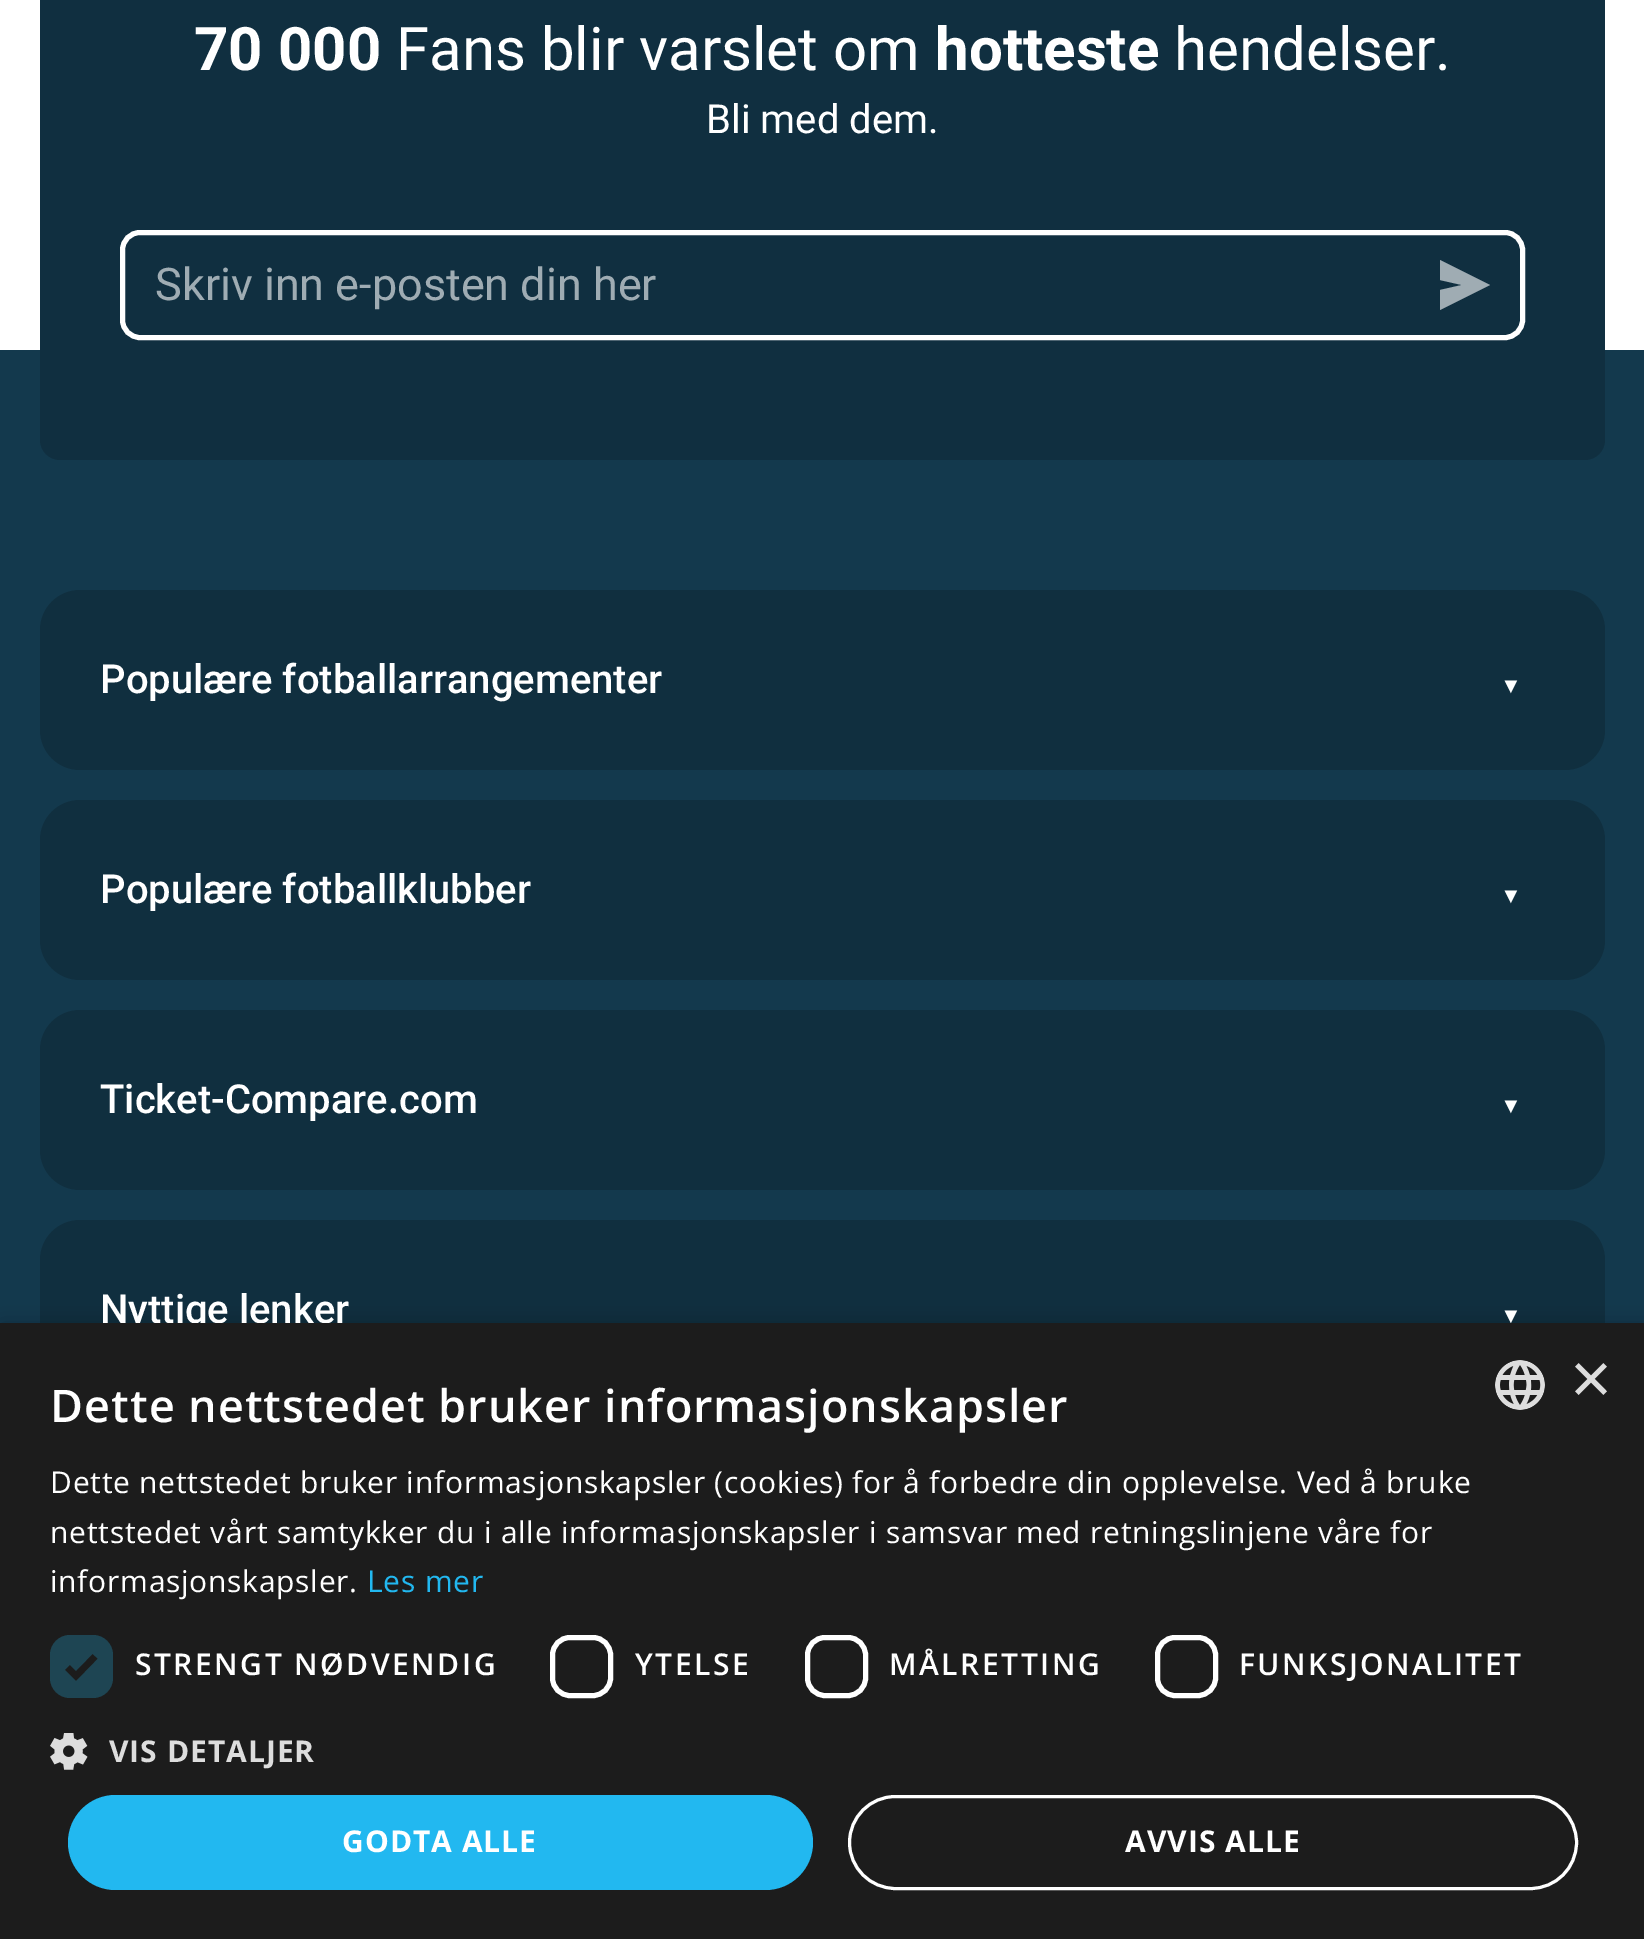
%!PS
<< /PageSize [1644 1939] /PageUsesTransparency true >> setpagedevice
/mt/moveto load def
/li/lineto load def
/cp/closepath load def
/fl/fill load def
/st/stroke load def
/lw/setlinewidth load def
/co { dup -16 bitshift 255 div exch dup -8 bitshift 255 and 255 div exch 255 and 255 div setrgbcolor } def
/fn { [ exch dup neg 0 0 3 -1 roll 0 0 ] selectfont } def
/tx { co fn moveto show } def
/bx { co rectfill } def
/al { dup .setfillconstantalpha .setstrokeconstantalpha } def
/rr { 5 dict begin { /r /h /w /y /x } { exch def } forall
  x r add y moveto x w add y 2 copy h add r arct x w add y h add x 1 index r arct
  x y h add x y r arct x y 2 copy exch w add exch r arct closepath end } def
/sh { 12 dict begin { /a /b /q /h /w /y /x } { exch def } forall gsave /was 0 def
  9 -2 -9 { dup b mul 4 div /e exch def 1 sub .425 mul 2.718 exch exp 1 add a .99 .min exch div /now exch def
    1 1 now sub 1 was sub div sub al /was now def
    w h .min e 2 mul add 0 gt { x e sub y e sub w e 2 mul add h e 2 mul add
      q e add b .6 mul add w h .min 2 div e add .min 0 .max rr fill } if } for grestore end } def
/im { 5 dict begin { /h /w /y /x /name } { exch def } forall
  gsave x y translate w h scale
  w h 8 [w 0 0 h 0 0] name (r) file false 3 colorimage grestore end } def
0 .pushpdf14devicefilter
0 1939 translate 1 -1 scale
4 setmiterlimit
0 0 1644 1939 16#FFFFFF bx
0 350 1644 973 16#13394D bx
16#102F40 co
40 -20 1565 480 20 rr fl
16#FFFFFF co
5 lw
122.5 232.5 1400 105 17.5 rr st
16#9FACB3 co
1490 285 mt 1440 260 li 1440 280 li 1462 285 li 1440 290 li 1440 310 li cp fl
16#102F3F co
40 590 1565 180 40 rr fl
40 800 1565 180 40 rr fl
40 1010 1565 180 40 rr fl
40 1220 1565 180 40 rr fl
16#000000 co
3 1328 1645 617 0 10 .35 sh
(70 000) 194 70 /Roboto-Bold 60 16#FFFFFF tx
(Fans blir varslet om) 396 70 /Roboto-Regular 60 16#FFFFFF tx
(hotteste) 935 70 /Roboto-Bold 60 16#FFFFFF tx
(hendelser.) 1174 70 /Roboto-Regular 60 16#FFFFFF tx
(Bli med dem.) 706 133 /Roboto-Regular 40 16#FFFFFF tx
(Skriv inn e-posten din her) 155 300 /Roboto-Regular 45 16#9FACB3 tx
(Populære fotballarrangementer) 100 693 /Roboto-Medium 40 16#FFFFFF tx
/LiberationSerif-Regular 22 fn
1500 693 mt 22 0 (▼) ashow
(Populære fotballklubber) 100 903 /Roboto-Medium 40 16#FFFFFF tx
/LiberationSerif-Regular 22 fn
1500 903 mt 22 0 (▼) ashow
(Ticket-Compare.com) 100 1113 /Roboto-Medium 40 16#FFFFFF tx
/LiberationSerif-Regular 22 fn
1500 1113 mt 22 0 (▼) ashow
(Nyttige lenker) 100 1323 /Roboto-Medium 40 16#FFFFFF tx
/LiberationSerif-Regular 22 fn
1500 1323 mt 22 0 (▼) ashow
0 1323 1644 616 16#1C1C1C bx
(media/1.raw) 1495 1360 50 50 im
(×) 1570 1403 /LiberationSans-Regular 72 16#DDDDDD tx
/OpenSans-SemiBold 45 fn
16#FFFFFF co
50 1422 mt 1 0 (Dette nettstedet bruker informasjonskapsler) ashow
/OpenSans-Regular 30 fn
50 1493 mt .75 0 (Dette nettstedet bruker informasjonskapsler \(cookies\) for å forbedre din opplevelse. Ved å bruke) ashow
50 1543 mt .75 0 (nettstedet vårt samtykker du i alle informasjonskapsler i samsvar med retningslinjene våre for) ashow
50 1592 mt .75 0 (informasjonskapsler.) ashow
16#22B8F0 co
367 1592 mt .75 0 (Les mer) ashow
16#1E4553 co
50 1635 63 63 20 rr fl
16#1C1C1C co
6.6 lw
67.5 1667.5 mt 76 1676 li 95 1656.5 li st
/OpenSans-SemiBold 30 fn
16#FFFFFF co
135 1675 mt 2.5 0 (STRENGT NØDVENDIG) ashow
5 lw
552.5 1637.5 58 58 17.5 rr st
635 1675 mt 2.5 0 (YTELSE) ashow
807.5 1637.5 58 58 17.5 rr st
889 1675 mt 2.5 0 (MÅLRETTING) ashow
1157.5 1637.5 58 58 17.5 rr st
1239 1675 mt 2.5 0 (FUNKSJONALITET) ashow
(media/2.raw) 50 1733 38 37 im
/OpenSans-Bold 30 fn
16#DDDDDD co
109 1762 mt 1 0 (VIS DETALJER) ashow
16#22B8F0 co
68 1795 745 95 47.5 rr fl
16#FFFFFF co
342 1852 mt 1 0 (GODTA ALLE) ashow
3 lw
849.5 1796.5 727 92 46 rr st
1125 1852 mt 1 0 (AVVIS ALLE) ashow
.poppdf14devicefilter showpage
